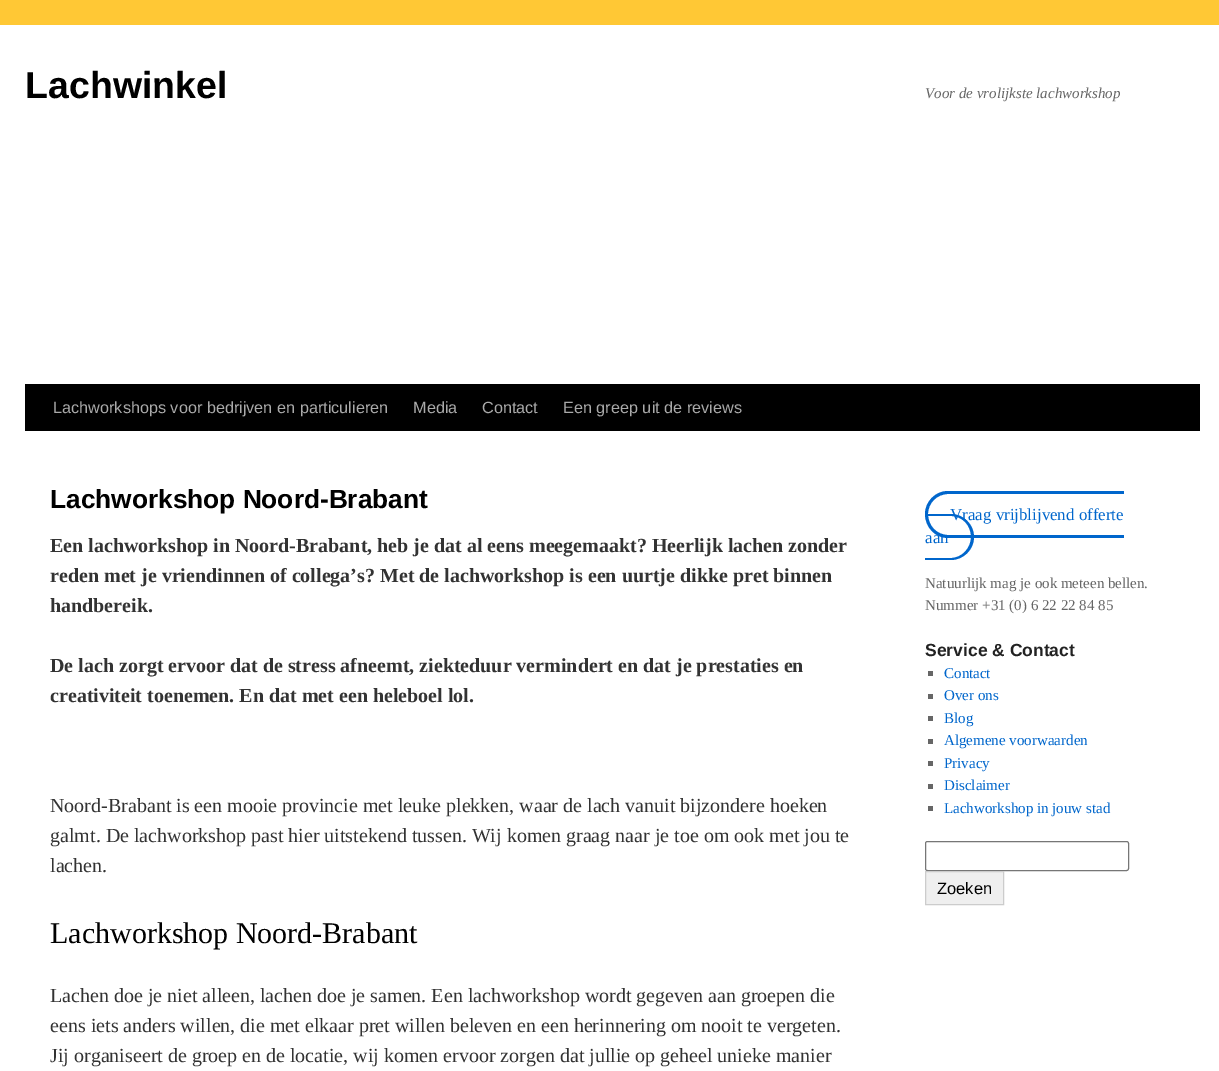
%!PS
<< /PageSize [1219 1071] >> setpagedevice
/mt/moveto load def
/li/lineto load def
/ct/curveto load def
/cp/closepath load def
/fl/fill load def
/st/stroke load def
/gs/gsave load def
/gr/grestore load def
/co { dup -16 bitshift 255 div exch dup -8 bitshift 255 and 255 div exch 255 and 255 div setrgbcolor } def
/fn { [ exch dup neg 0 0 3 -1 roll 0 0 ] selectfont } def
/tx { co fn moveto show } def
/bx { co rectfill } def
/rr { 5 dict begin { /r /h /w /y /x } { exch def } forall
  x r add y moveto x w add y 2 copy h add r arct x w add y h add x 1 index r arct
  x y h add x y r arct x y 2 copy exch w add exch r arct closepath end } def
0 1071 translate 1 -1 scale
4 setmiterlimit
0 0 1219 1071 16#FFC835 bx
0 25 1219 1046 16#FFFFFF bx
25 384 1175 47 16#000000 bx
16#0066CC co
948 491 mt 1124 491 li 1124 538 li 948 538 li 935 538 925 527 925 514 ct 925 502 935 491 948 491 ct cp 948 494 mt 1124 494 li 1124 535 li 948 535 li 937 535 928 526 928 514 ct 928 503 937 494 948 494 ct cp eofill
925 514 mt 951 514 li 963 514 974 524 974 537 ct 974 550 963 560 951 560 ct 925 560 li cp 925 516 mt 951 516 li 962 516 971 525 971 537 ct 971 548 962 558 951 558 ct 925 558 li cp eofill
928 671 5 5 16#666666 bx
928 694 5 5 16#666666 bx
928 716 5 5 16#666666 bx
928 739 5 5 16#666666 bx
928 761 5 5 16#666666 bx
928 784 5 5 16#666666 bx
928 806 5 5 16#666666 bx
16#767676 co
925.5 841.5 203 29 2 rr st
16#EFEFEF co
925.5 871.5 mt 1003.5 871.5 li 1003.5 904.5 li 925.5 904.5 li cp gs fl gr
16#CCCCCC co
st
(Lachwinkel) 25 98 /LiberationSans-Bold 37.5 16#000000 tx
(Voor de vrolijkste lachworkshop) 925 98 /LiberationSerif-Italic 15 16#666666 tx
(Lachworkshops voor bedrijven en particulieren) 53 413 /LiberationSans-Regular 16.25 16#AAAAAA tx
(Media) 413 413 /LiberationSans-Regular 16.25 16#AAAAAA tx
(Contact) 482 413 /LiberationSans-Regular 16.25 16#AAAAAA tx
(Een greep uit de reviews) 563 413 /LiberationSans-Regular 16.25 16#AAAAAA tx
(Lachworkshop Noord-Brabant) 50 508 /LiberationSans-Bold 26.25 16#000000 tx
(Een lachworkshop in Noord-Brabant, heb je dat al eens meegemaakt? Heerlijk lachen zonder) 50 552 /LiberationSerif-Bold 20 16#333333 tx
(reden met je vriendinnen of collega’s? Met de lachworkshop is een uurtje dikke pret binnen) 50 582 /LiberationSerif-Bold 20 16#333333 tx
(handbereik.) 50 612 /LiberationSerif-Bold 20 16#333333 tx
(De lach zorgt ervoor dat de stress afneemt, ziekteduur vermindert en dat je prestaties en) 50 672 /LiberationSerif-Bold 20 16#333333 tx
(creativiteit toenemen. En dat met een heleboel lol.) 50 702 /LiberationSerif-Bold 20 16#333333 tx
(Noord-Brabant is een mooie provincie met leuke plekken, waar de lach vanuit bijzondere hoeken) 50 812 /LiberationSerif-Regular 20 16#333333 tx
(galmt. De lachworkshop past hier uitstekend tussen. Wij komen graag naar je toe om ook met jou te) 50 842 /LiberationSerif-Regular 20 16#333333 tx
(lachen.) 50 872 /LiberationSerif-Regular 20 16#333333 tx
(Lachworkshop Noord-Brabant) 50 943 /LiberationSerif-Regular 30 16#000000 tx
(Lachen doe je niet alleen, lachen doe je samen. Een lachworkshop wordt gegeven aan groepen die) 50 1002 /LiberationSerif-Regular 20 16#333333 tx
(eens iets anders willen, die met elkaar pret willen beleven en een herinnering om nooit te vergeten.) 50 1032 /LiberationSerif-Regular 20 16#333333 tx
(Jij organiseert de groep en de locatie, wij komen ervoor zorgen dat jullie op geheel unieke manier) 50 1062 /LiberationSerif-Regular 20 16#333333 tx
(Vraag vrijblijvend offerte) 950 520 /LiberationSerif-Regular 16.9 16#0066CC tx
(aan) 925 543 /LiberationSerif-Regular 16.9 16#0066CC tx
(Natuurlijk mag je ook meteen bellen.) 925 588 /LiberationSerif-Regular 15 16#666666 tx
(Nummer +31 \(0\) 6 22 22 84 85) 925 610 /LiberationSerif-Regular 15 16#666666 tx
(Service & Contact) 925 656 /LiberationSans-Bold 17.5 16#222222 tx
(Contact) 944 678 /LiberationSerif-Regular 15 16#0066CC tx
(Over ons) 944 700 /LiberationSerif-Regular 15 16#0066CC tx
(Blog) 944 723 /LiberationSerif-Regular 15 16#0066CC tx
(Algemene voorwaarden) 944 745 /LiberationSerif-Regular 15 16#0066CC tx
(Privacy) 944 768 /LiberationSerif-Regular 15 16#0066CC tx
(Disclaimer) 944 790 /LiberationSerif-Regular 15 16#0066CC tx
(Lachworkshop in jouw stad) 944 813 /LiberationSerif-Regular 15 16#0066CC tx
(Zoeken) 937 894 /LiberationSans-Regular 16.5 16#000000 tx
showpage
